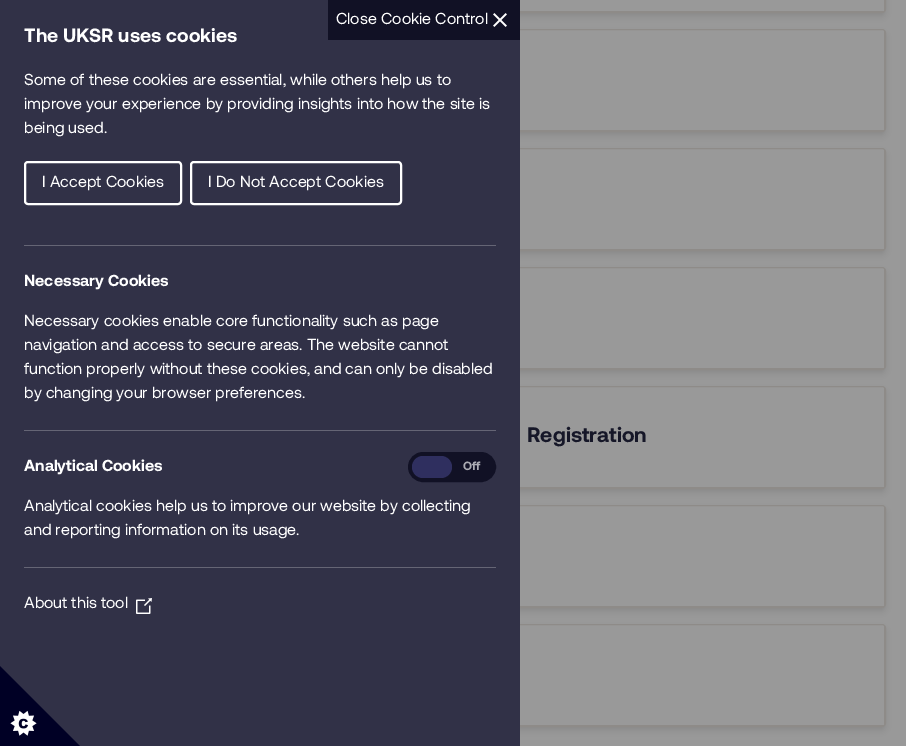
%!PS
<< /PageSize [906 746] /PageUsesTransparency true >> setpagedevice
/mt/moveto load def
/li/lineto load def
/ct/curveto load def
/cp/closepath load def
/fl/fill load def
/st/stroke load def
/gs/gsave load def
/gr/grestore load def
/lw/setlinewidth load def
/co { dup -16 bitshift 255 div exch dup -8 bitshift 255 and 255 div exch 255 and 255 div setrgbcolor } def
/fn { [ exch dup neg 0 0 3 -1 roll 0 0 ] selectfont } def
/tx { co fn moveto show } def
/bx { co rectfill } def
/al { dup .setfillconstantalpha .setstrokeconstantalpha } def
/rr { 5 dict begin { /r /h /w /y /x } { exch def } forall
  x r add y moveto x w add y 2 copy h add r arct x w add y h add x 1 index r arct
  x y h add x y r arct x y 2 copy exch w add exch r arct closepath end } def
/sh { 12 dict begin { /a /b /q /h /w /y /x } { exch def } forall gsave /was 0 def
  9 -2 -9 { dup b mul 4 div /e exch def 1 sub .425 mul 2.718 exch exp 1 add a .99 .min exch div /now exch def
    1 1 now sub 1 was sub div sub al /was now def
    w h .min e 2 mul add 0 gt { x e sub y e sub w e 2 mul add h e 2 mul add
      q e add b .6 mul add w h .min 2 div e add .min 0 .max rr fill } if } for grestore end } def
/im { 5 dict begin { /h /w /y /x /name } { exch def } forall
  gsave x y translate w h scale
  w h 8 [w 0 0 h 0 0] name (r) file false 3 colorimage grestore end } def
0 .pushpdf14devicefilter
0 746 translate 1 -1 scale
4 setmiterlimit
0 0 906 746 16#999999 bx
gs
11 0 mt 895 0 li 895 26 li 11 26 li cp 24 -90 mt 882 -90 li 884 -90 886 -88 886 -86 ct 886 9 li 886 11 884 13 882 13 ct 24 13 li 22 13 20 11 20 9 ct 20 -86 li 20 -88 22 -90 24 -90 ct cp eoclip newpath
16#000000 co
21 -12 864 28 3 3 .1 sh
gr
16#8E8B88 co
20.5 -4.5 865 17 3.5 rr st
gs
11 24 mt 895 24 li 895 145 li 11 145 li cp 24 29 mt 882 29 li 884 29 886 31 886 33 ct 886 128 li 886 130 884 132 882 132 ct 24 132 li 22 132 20 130 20 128 ct 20 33 li 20 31 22 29 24 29 ct cp eoclip newpath
16#000000 co
21 34 864 101 3 3 .1 sh
gr
20.5 29.5 865 102 3.5 rr st
gs
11 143 mt 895 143 li 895 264 li 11 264 li cp 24 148 mt 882 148 li 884 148 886 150 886 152 ct 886 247 li 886 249 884 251 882 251 ct 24 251 li 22 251 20 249 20 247 ct 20 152 li 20 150 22 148 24 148 ct cp eoclip newpath
16#000000 co
21 153 864 101 3 3 .1 sh
gr
20.5 148.5 865 102 3.5 rr st
gs
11 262 mt 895 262 li 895 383 li 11 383 li cp 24 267 mt 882 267 li 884 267 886 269 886 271 ct 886 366 li 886 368 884 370 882 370 ct 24 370 li 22 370 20 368 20 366 ct 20 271 li 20 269 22 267 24 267 ct cp eoclip newpath
16#000000 co
21 272 864 101 3 3 .1 sh
gr
20.5 267.5 865 102 3.5 rr st
gs
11 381 mt 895 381 li 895 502 li 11 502 li cp 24 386 mt 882 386 li 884 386 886 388 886 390 ct 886 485 li 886 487 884 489 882 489 ct 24 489 li 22 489 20 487 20 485 ct 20 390 li 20 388 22 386 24 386 ct cp eoclip newpath
16#000000 co
21 391 864 101 3 3 .1 sh
gr
20.5 386.5 865 102 3.5 rr st
gs
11 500 mt 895 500 li 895 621 li 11 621 li cp 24 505 mt 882 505 li 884 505 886 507 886 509 ct 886 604 li 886 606 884 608 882 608 ct 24 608 li 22 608 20 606 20 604 ct 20 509 li 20 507 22 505 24 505 ct cp eoclip newpath
16#000000 co
21 510 864 101 3 3 .1 sh
gr
20.5 505.5 865 102 3.5 rr st
gs
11 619 mt 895 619 li 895 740 li 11 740 li cp 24 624 mt 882 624 li 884 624 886 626 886 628 ct 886 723 li 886 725 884 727 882 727 ct 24 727 li 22 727 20 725 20 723 ct 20 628 li 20 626 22 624 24 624 ct cp eoclip newpath
16#000000 co
21 629 864 101 3 3 .1 sh
gr
20.5 624.5 865 102 3.5 rr st
0 0 520 746 16#313147 bx
328 0 192 40 16#111125 bx
(media/1.raw) 493 13 14 14 im
16#FFFFFF co
2 lw
25 162 156 42 3 rr st
191 162 210 42 3 rr st
24 245 472 1 16#656575 bx
24 430 472 1 16#656575 bx
16#111125 co
410 454 84 26 13 rr gs fl gr
4 lw
st
16#2F2F5F co
412 456 40 22 11 rr fl
24 567 472 1 16#656575 bx
(media/2.raw) 136 598 16 16 im
(media/3.raw) 0 666 80 80 im
884 0 1 11 16#8E8B88 bx
520 11 364 1 16#8E8B88 bx
884 31 1 99 16#8E8B88 bx
520 130 364 1 16#8E8B88 bx
884 150 1 99 16#8E8B88 bx
520 249 364 1 16#8E8B88 bx
884 269 1 99 16#8E8B88 bx
520 368 364 1 16#8E8B88 bx
884 388 1 99 16#8E8B88 bx
520 487 364 1 16#8E8B88 bx
884 507 1 99 16#8E8B88 bx
520 606 364 1 16#8E8B88 bx
884 626 1 99 16#8E8B88 bx
520 725 364 1 16#8E8B88 bx
(Close Cookie Control) 336 24 /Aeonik-Regular 16 16#FFFFFF tx
(The UKSR uses cookies) 24 42 /Aeonik-Bold 19.25 16#FFFFFF tx
(Some of these cookies are essential, while others help us to) 24 85 /Aeonik-Regular 16 16#FFFFFF tx
(improve your experience by providing insights into how the site is) 24 109 /Aeonik-Regular 16 16#FFFFFF tx
(being used.) 24 133 /Aeonik-Regular 16 16#FFFFFF tx
(I Accept Cookies) 42 187 /Aeonik-Regular 16 16#FFFFFF tx
(I Do Not Accept Cookies) 208 187 /Aeonik-Regular 16 16#FFFFFF tx
(Necessary Cookies) 24 286 /Aeonik-Bold 16 16#FFFFFF tx
(Necessary cookies enable core functionality such as page) 24 326 /Aeonik-Regular 16 16#FFFFFF tx
(navigation and access to secure areas. The website cannot) 24 350 /Aeonik-Regular 16 16#FFFFFF tx
(function properly without these cookies, and can only be disabled) 24 374 /Aeonik-Regular 16 16#FFFFFF tx
(by changing your browser preferences.) 24 398 /Aeonik-Regular 16 16#FFFFFF tx
(Analytical Cookies) 24 471 /Aeonik-Bold 16 16#FFFFFF tx
(Off) 463 470 /Aeonik-Bold 12 16#ACACB3 tx
(Analytical cookies help us to improve our website by collecting) 24 511 /Aeonik-Regular 16 16#FFFFFF tx
(and reporting information on its usage.) 24 535 /Aeonik-Regular 16 16#FFFFFF tx
(About this tool) 24 608 /Aeonik-Regular 16 16#FFFFFF tx
(Registration) 527 442 /Aeonik-Bold 21 16#161728 tx
.poppdf14devicefilter showpage
